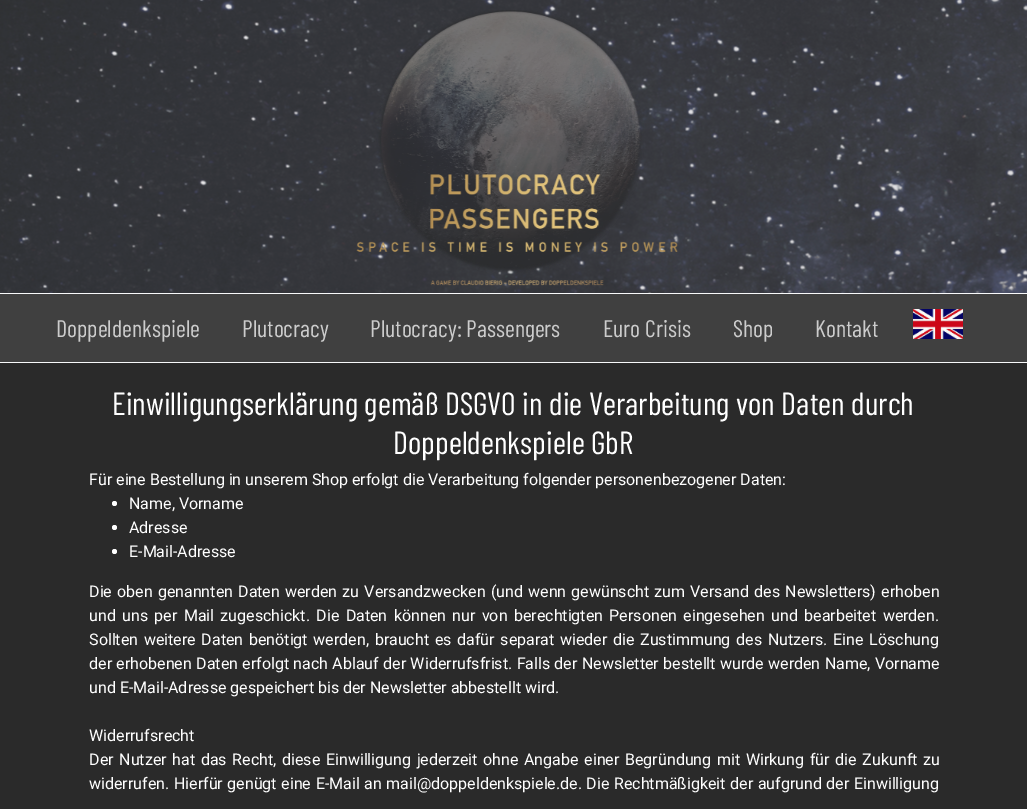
%!PS
<< /PageSize [1027 809] >> setpagedevice
/mt/moveto load def
/fl/fill load def
/co { dup -16 bitshift 255 div exch dup -8 bitshift 255 and 255 div exch 255 and 255 div setrgbcolor } def
/fn { [ exch dup neg 0 0 3 -1 roll 0 0 ] selectfont } def
/tx { co fn moveto show } def
/bx { co rectfill } def
/ci { newpath 0 360 arc closepath } def
/im { 5 dict begin { /h /w /y /x /name } { exch def } forall
  gsave x y translate w h scale
  w h 8 [w 0 0 h 0 0] name (r) file false 3 colorimage grestore end } def
0 809 translate 1 -1 scale
4 setmiterlimit
0 0 1027 809 16#2A2A2A bx
(media/1.raw) 0 0 1027 293 im
(media/2.raw) 356 10 322 276 im
0 294 1027 68 16#404040 bx
0 293 1027 1 16#F8F9FA bx
0 362 1027 1 16#F8F9FA bx
(media/3.raw) 913 309 50 30 im
16#FFFFFF co
114.5 503.5 2.5 ci fl
114.5 527.5 2.5 ci fl
114.5 551.5 2.5 ci fl
(Doppeldenkspiele) 56 337 /BarlowCondensed-Regular 24 16#CCCCCC tx
(Plutocracy) 242 337 /BarlowCondensed-Regular 24 16#CCCCCC tx
(Plutocracy: Passengers) 370 337 /BarlowCondensed-Regular 24 16#CCCCCC tx
(Euro Crisis) 603 337 /BarlowCondensed-Regular 24 16#CCCCCC tx
(Shop) 733 337 /BarlowCondensed-Regular 24 16#CCCCCC tx
(Kontakt) 815 337 /BarlowCondensed-Regular 24 16#CCCCCC tx
(Einwilligungserklärung gemäß DSGVO in die Verarbeitung von Daten durch) 112 415 /BarlowCondensed-Regular 32 16#FFFFFF tx
(Doppeldenkspiele GbR) 393 454 /BarlowCondensed-Regular 32 16#FFFFFF tx
(Für eine Bestellung in unserem Shop erfolgt die Verarbeitung folgender personenbezogener Daten:) 89 485 /Roboto-Regular 16 16#FFFFFF tx
(Name, Vorname) 129 509 /Roboto-Regular 16 16#FFFFFF tx
(Adresse) 129 533 /Roboto-Regular 16 16#FFFFFF tx
(E-Mail-Adresse) 129 557 /Roboto-Regular 16 16#FFFFFF tx
89 597 mt 1.2 0 32 (Die oben genannten Daten werden zu Versandzwecken \(und wenn gewünscht zum Versand des Newsletters\) erhoben) widthshow
89 621 mt 2.4 0 32 (und uns per Mail zugeschickt. Die Daten können nur von berechtigten Personen eingesehen und bearbeitet werden.) widthshow
89 645 mt 1.75 0 32 (Sollten weitere Daten benötigt werden, braucht es dafür separat wieder die Zustimmung des Nutzers. Eine Löschung) widthshow
89 669 mt .4 0 32 (der erhobenen Daten erfolgt nach Ablauf der Widerrufsfrist. Falls der Newsletter bestellt wurde werden Name, Vorname) widthshow
(und E-Mail-Adresse gespeichert bis der Newsletter abbestellt wird.) 89 693 /Roboto-Regular 16 16#FFFFFF tx
(Widerrufsrecht) 89 741 /Roboto-Regular 16 16#FFFFFF tx
89 765 mt 1.75 0 32 (Der Nutzer hat das Recht, diese Einwilligung jederzeit ohne Angabe einer Begründung mit Wirkung für die Zukunft zu) widthshow
89 789 mt .6 0 32 (widerrufen. Hierfür genügt eine E-Mail an mail@doppeldenkspiele.de. Die Rechtmäßigkeit der aufgrund der Einwilligung) widthshow
showpage
